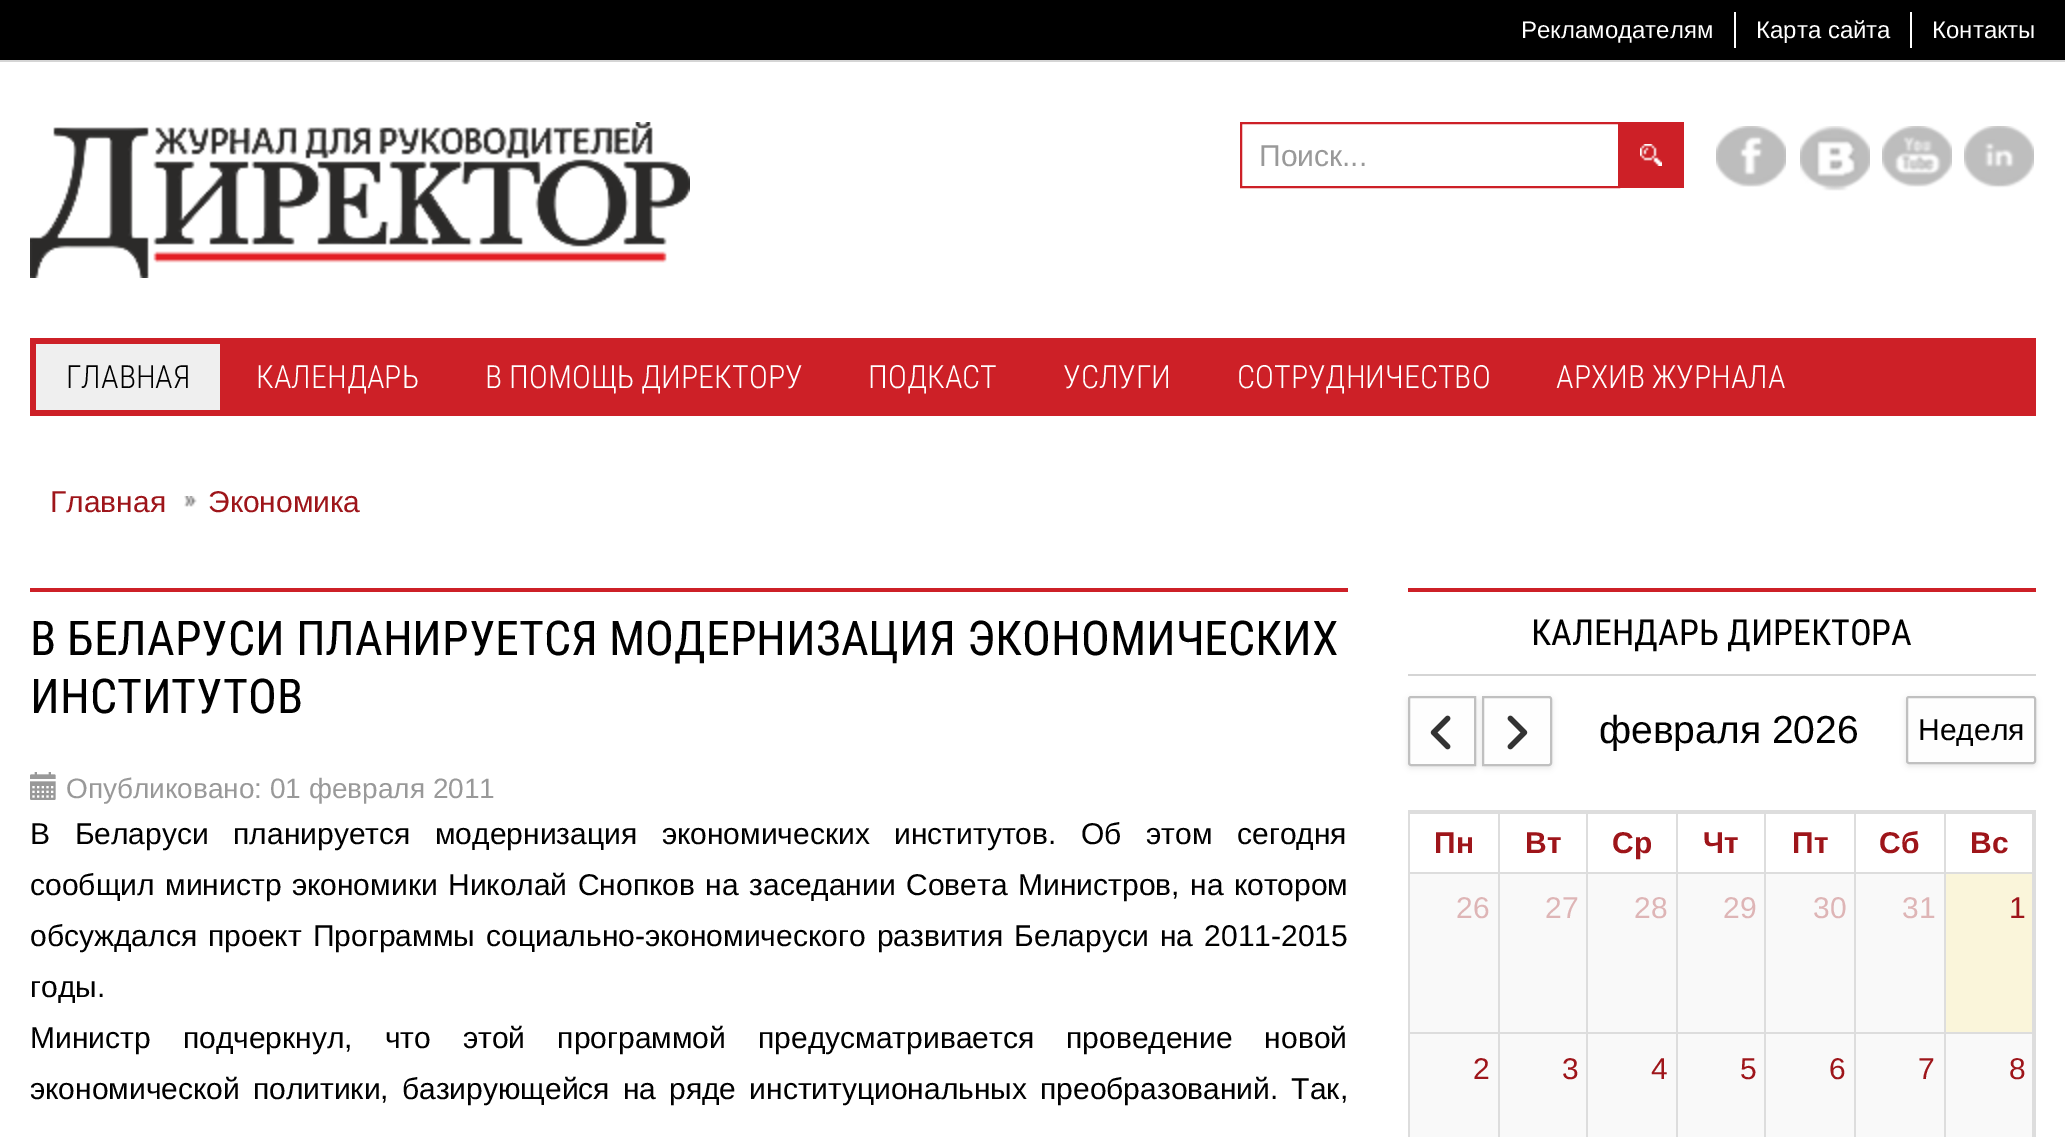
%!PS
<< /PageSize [2065 1137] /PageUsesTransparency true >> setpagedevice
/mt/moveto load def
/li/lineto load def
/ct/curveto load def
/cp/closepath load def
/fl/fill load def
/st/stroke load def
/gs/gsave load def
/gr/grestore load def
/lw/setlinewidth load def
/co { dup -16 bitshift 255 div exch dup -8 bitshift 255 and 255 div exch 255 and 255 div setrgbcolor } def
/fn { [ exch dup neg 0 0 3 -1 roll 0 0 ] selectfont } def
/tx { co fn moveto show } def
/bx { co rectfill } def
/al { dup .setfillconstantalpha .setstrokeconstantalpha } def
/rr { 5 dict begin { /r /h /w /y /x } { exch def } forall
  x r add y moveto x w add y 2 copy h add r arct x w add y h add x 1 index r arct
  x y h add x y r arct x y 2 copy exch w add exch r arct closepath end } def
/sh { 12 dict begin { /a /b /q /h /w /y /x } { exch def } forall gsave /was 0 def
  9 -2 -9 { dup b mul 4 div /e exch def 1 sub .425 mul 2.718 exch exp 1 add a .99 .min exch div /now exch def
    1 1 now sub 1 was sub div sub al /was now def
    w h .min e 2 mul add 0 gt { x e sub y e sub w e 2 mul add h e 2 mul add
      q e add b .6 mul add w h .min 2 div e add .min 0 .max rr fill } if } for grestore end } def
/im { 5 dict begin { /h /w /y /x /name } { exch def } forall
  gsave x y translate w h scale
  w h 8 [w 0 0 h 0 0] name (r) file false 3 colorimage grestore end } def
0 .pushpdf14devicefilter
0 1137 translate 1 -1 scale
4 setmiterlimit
0 0 2065 1137 16#FFFFFF bx
0 0 2065 60 16#000000 bx
0 60 2065 2 16#D5D5D5 bx
1734 12 2 36 16#FFFFFF bx
1910 12 2 36 16#FFFFFF bx
(media/1.raw) 30 122 660 156 im
16#CD2027 co
2 lw
1241 123 378 64 rectstroke
1620 122 64 66 16#CD2027 bx
(media/2.raw) 1640 144 22 22 im
(media/3.raw) 1716 126 70 61 im
(media/4.raw) 1800 126 70 65 im
(media/5.raw) 1882 126 70 61 im
(media/6.raw) 1964 126 70 62 im
30 338 2006 78 16#CD2027 bx
36 344 184 66 16#EFEFEF bx
(media/7.raw) 184 496 13 11 im
30 588 1318 4 16#CD2027 bx
(media/8.raw) 30 772 26 28 im
1408 588 628 4 16#CD2027 bx
1408 674 628 2 16#D5D5D5 bx
16#000000 co
1408 698 68 70 3 3 .1 sh
16#FEFEFE co
1411 697 mt 1475 697 li 1475 765 li 1411 765 li 1410 765 1409 764 1409 763 ct 1409 699 li 1409 698 1410 697 1411 697 ct cp gs fl gr
16#C0C0C0 co
st
(media/9.raw) 1430 715 21 35 im
16#000000 co
1482 698 70 70 3 3 .1 sh
16#FEFEFE co
1483 697 mt 1549 697 li 1550 697 1551 698 1551 699 ct 1551 763 li 1551 764 1550 765 1549 765 ct 1483 765 li cp gs fl gr
16#C0C0C0 co
st
(media/10.raw) 1507 715 21 35 im
16#000000 co
1906 698 130 68 3 3 .1 sh
16#FEFEFE co
1907 697 128 66 2 rr gs fl gr
16#C0C0C0 co
st
1408 810 628 2 16#DDDDDD bx
1408 810 2 327 16#DDDDDD bx
1944 812 90 2 16#DDDDDD bx
2032 812 2 62 16#DDDDDD bx
1944 872 90 2 16#DDDDDD bx
1944 812 2 62 16#DDDDDD bx
1854 812 92 2 16#DDDDDD bx
1854 872 92 2 16#DDDDDD bx
1854 812 2 62 16#DDDDDD bx
1764 812 92 2 16#DDDDDD bx
1764 872 92 2 16#DDDDDD bx
1764 812 2 62 16#DDDDDD bx
1676 812 90 2 16#DDDDDD bx
1676 872 90 2 16#DDDDDD bx
1676 812 2 62 16#DDDDDD bx
1586 812 92 2 16#DDDDDD bx
1586 872 92 2 16#DDDDDD bx
1586 812 2 62 16#DDDDDD bx
1498 812 90 2 16#DDDDDD bx
1498 872 90 2 16#DDDDDD bx
1498 812 2 62 16#DDDDDD bx
1410 812 90 2 16#DDDDDD bx
1410 872 90 2 16#DDDDDD bx
1410 874 622 263 16#F9F9F9 bx
2034 812 2 325 16#DDDDDD bx
1944 1032 90 2 16#DDDDDD bx
1944 1032 2 105 16#DDDDDD bx
1854 1032 92 2 16#DDDDDD bx
1854 1032 2 105 16#DDDDDD bx
1764 1032 92 2 16#DDDDDD bx
1764 1032 2 105 16#DDDDDD bx
1676 1032 90 2 16#DDDDDD bx
1676 1032 2 105 16#DDDDDD bx
1586 1032 92 2 16#DDDDDD bx
1586 1032 2 105 16#DDDDDD bx
1498 1032 90 2 16#DDDDDD bx
1498 1032 2 105 16#DDDDDD bx
1410 1032 90 2 16#DDDDDD bx
1498 874 2 160 16#DDDDDD bx
1586 874 2 160 16#DDDDDD bx
1676 874 2 160 16#DDDDDD bx
1764 874 2 160 16#DDDDDD bx
1854 874 2 160 16#DDDDDD bx
1946 874 86 158 16#FAF5DA bx
1944 874 2 160 16#DDDDDD bx
2032 874 2 263 16#DDDDDD bx
(Рекламодателям) 1521 38 /LiberationSans-Regular 24 16#FFFFFF tx
(Карта сайта) 1756 38 /LiberationSans-Regular 24 16#FFFFFF tx
(Контакты) 1932 38 /LiberationSans-Regular 24 16#FFFFFF tx
(Поиск...) 1259 166 /LiberationSans-Regular 30 16#999999 tx
(ГЛАВНАЯ) 66 388 /RobotoCondensed-Light 32 16#000000 tx
(КАЛЕНДАРЬ) 256 388 /RobotoCondensed-Light 32 16#FFFFFF tx
(В ПОМОЩЬ ДИРЕКТОРУ) 485 388 /RobotoCondensed-Light 32 16#FFFFFF tx
(ПОДКАСТ) 868 388 /RobotoCondensed-Light 32 16#FFFFFF tx
(УСЛУГИ) 1063 388 /RobotoCondensed-Light 32 16#FFFFFF tx
(СОТРУДНИЧЕСТВО) 1237 388 /RobotoCondensed-Light 32 16#FFFFFF tx
(АРХИВ ЖУРНАЛА) 1556 388 /RobotoCondensed-Light 32 16#FFFFFF tx
(Главная) 50 512 /LiberationSans-Regular 30 16#9E151A tx
(Экономика) 208 512 /LiberationSans-Regular 30 16#9E151A tx
(В БЕЛАРУСИ ПЛАНИРУЕТСЯ МОДЕРНИЗАЦИЯ ЭКОНОМИЧЕСКИХ) 30 655 /RobotoCondensed-Regular 48 16#000000 tx
(ИНСТИТУТОВ) 30 713 /RobotoCondensed-Regular 48 16#000000 tx
(Опубликовано: 01 февраля 2011) 66 798 /LiberationSans-Regular 28 16#999999 tx
/LiberationSans-Regular 30 fn
16#000000 co
30 844 mt 16.25 0 32 (В Беларуси планируется модернизация экономических институтов. Об этом сегодня) widthshow
30 895 mt 2.25 0 32 (сообщил министр экономики Николай Снопков на заседании Совета Министров, на котором) widthshow
30 946 mt 3 0 32 (обсуждался проект Программы социально-экономического развития Беларуси на 2011-2015) widthshow
(годы.) 30 997 /LiberationSans-Regular 30 16#000000 tx
30 1048 mt 23.75 0 32 (Министр подчеркнул, что этой программой предусматривается проведение новой) widthshow
30 1099 mt 4.75 0 32 (экономической политики, базирующейся на ряде институциональных преобразований. Так,) widthshow
(КАЛЕНДАРЬ ДИРЕКТОРА) 1531 645 /RobotoCondensed-Regular 36 16#000000 tx
(февраля 2026) 1599 743 /LiberationSans-Regular 39 16#000000 tx
(Неделя) 1918 740 /LiberationSans-Regular 30 16#000000 tx
(Пн) 1434 853 /LiberationSans-Bold 30 16#9E151A tx
(Вт) 1525 853 /LiberationSans-Bold 30 16#9E151A tx
(Ср) 1612 853 /LiberationSans-Bold 30 16#9E151A tx
(Чт) 1703 853 /LiberationSans-Bold 30 16#9E151A tx
(Пт) 1792 853 /LiberationSans-Bold 30 16#9E151A tx
(Сб) 1879 853 /LiberationSans-Bold 30 16#9E151A tx
(Вс) 1970 853 /LiberationSans-Bold 30 16#9E151A tx
(26) 1456 918 /LiberationSans-Regular 30 16#DEB5B6 tx
(27) 1545 918 /LiberationSans-Regular 30 16#DEB5B6 tx
(28) 1634 918 /LiberationSans-Regular 30 16#DEB5B6 tx
(29) 1723 918 /LiberationSans-Regular 30 16#DEB5B6 tx
(30) 1813 918 /LiberationSans-Regular 30 16#DEB5B6 tx
(31) 1902 918 /LiberationSans-Regular 30 16#DEB5B6 tx
(1) 2009 918 /LiberationSans-Regular 30 16#9E151A tx
(2) 1473 1079 /LiberationSans-Regular 30 16#9E151A tx
(3) 1562 1079 /LiberationSans-Regular 30 16#9E151A tx
(4) 1651 1079 /LiberationSans-Regular 30 16#9E151A tx
(5) 1740 1079 /LiberationSans-Regular 30 16#9E151A tx
(6) 1829 1079 /LiberationSans-Regular 30 16#9E151A tx
(7) 1918 1079 /LiberationSans-Regular 30 16#9E151A tx
(8) 2009 1079 /LiberationSans-Regular 30 16#9E151A tx
.poppdf14devicefilter showpage
